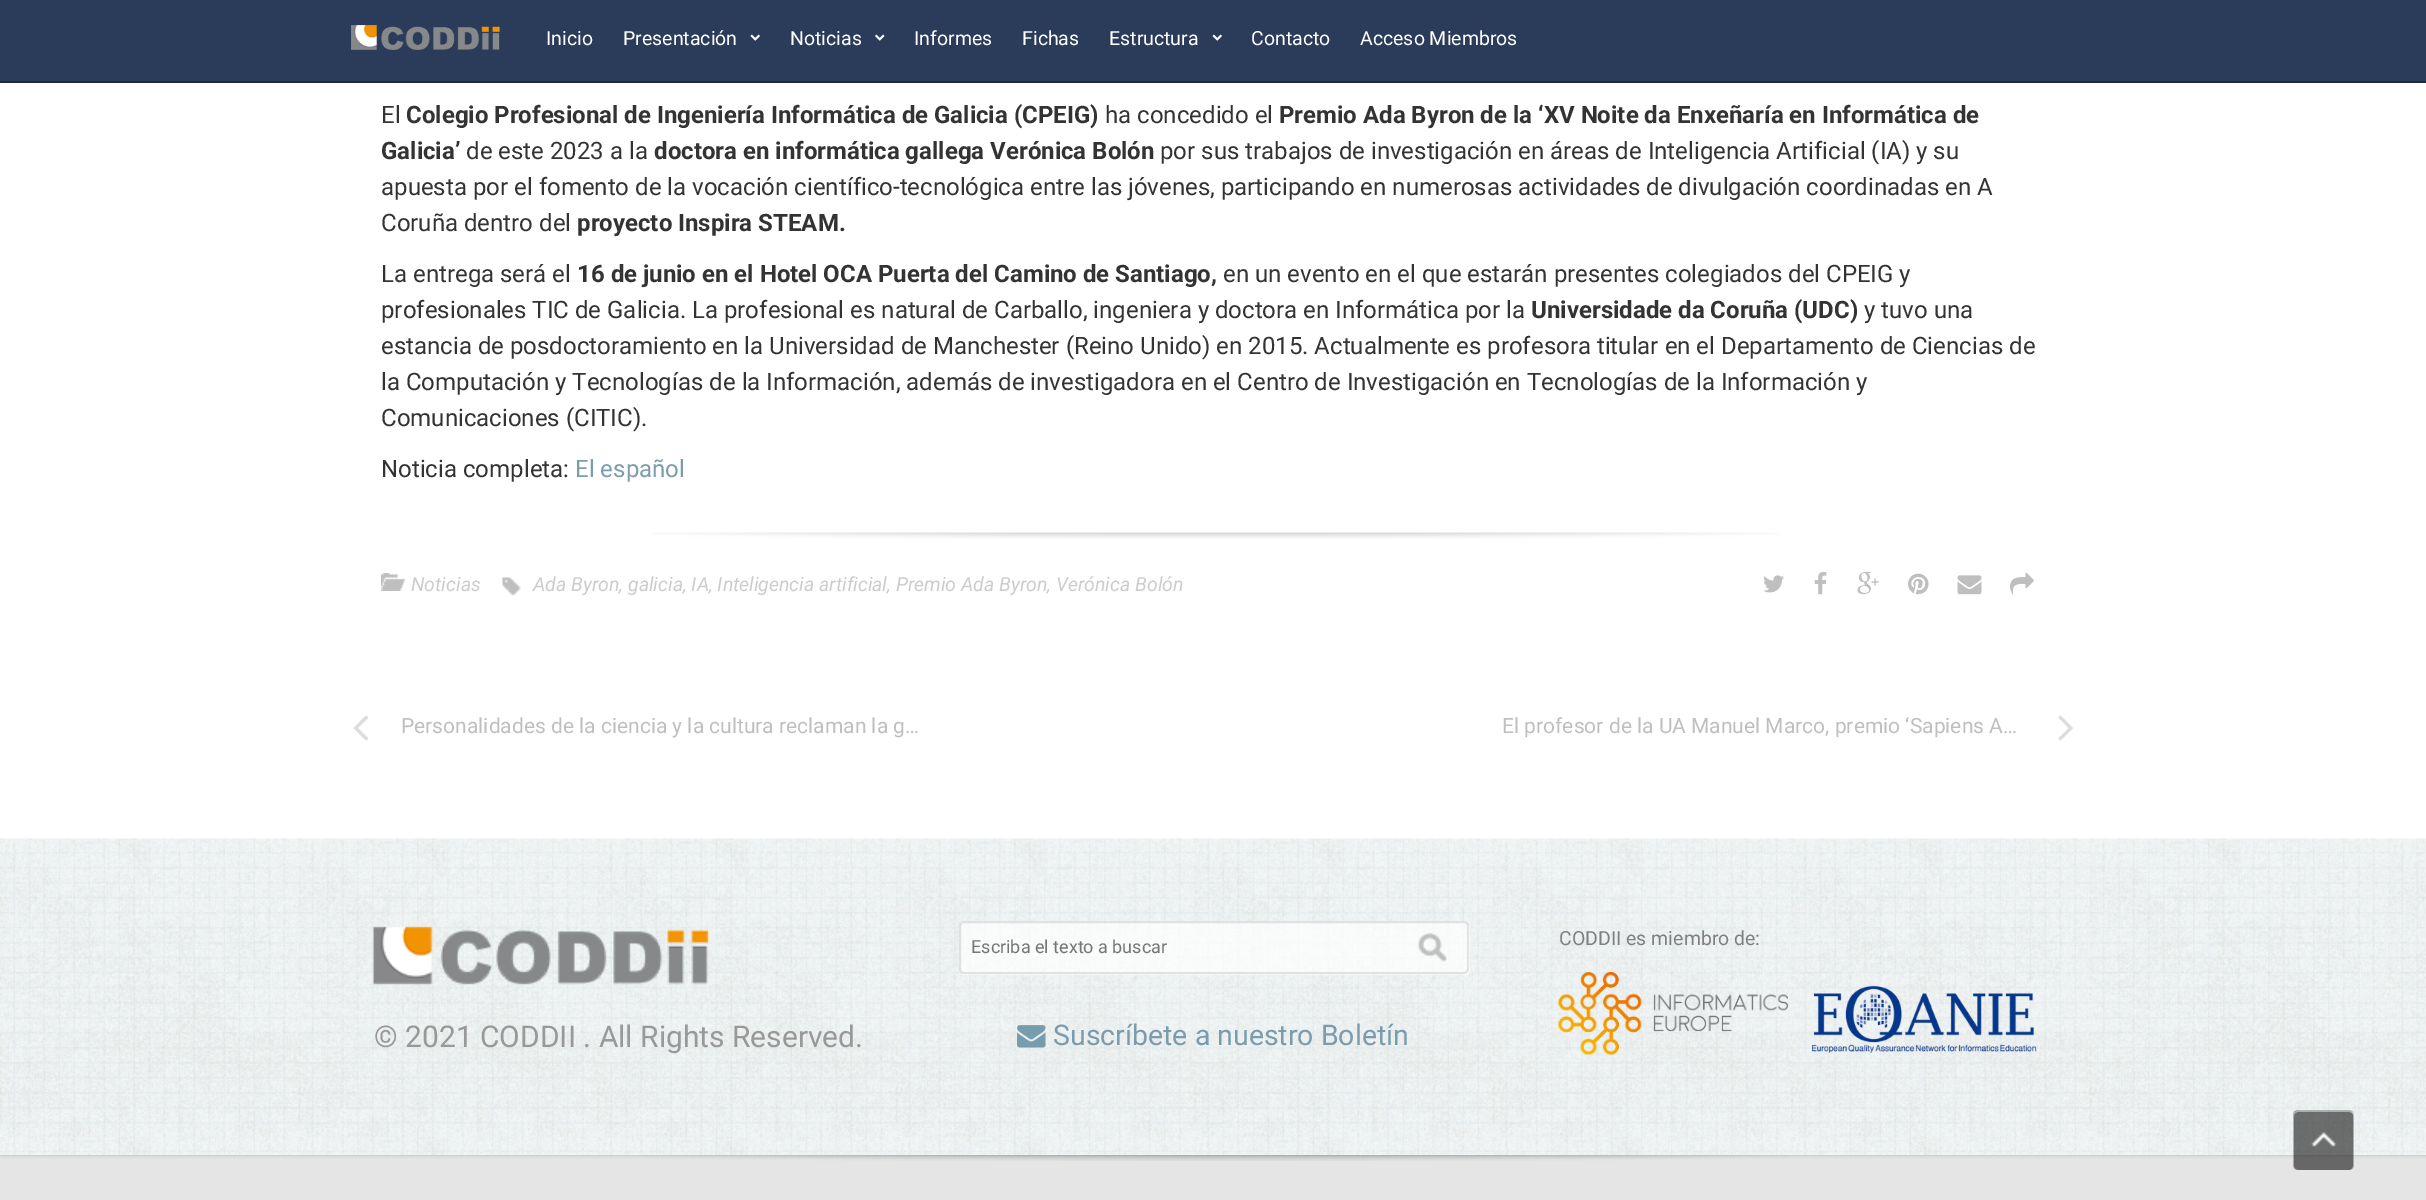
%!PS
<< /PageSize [2426 1200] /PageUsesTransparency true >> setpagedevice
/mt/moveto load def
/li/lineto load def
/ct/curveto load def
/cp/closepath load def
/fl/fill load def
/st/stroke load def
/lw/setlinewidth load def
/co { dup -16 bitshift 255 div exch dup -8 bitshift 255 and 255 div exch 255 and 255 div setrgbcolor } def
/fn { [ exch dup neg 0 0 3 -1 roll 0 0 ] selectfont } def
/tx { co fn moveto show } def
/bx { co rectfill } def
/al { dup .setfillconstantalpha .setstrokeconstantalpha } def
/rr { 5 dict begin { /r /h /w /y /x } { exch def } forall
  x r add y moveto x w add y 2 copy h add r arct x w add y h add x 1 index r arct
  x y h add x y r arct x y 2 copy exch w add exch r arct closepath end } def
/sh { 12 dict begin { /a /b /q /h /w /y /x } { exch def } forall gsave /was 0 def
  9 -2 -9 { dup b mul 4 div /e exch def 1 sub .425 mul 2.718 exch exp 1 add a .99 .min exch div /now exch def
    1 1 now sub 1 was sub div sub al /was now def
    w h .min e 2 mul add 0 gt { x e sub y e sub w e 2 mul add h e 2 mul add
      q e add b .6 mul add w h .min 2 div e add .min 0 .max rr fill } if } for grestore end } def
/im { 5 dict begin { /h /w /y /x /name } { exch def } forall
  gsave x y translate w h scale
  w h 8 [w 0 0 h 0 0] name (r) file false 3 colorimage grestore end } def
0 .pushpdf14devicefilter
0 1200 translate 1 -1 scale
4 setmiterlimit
0 0 2426 1200 16#E5E5E5 bx
(media/21.raw) 641 1155 1148 6 im
16#000000 co
0 -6 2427 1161 0 2 .2 sh
0 0 2426 81 16#2B3B5A bx
0 81 2426 2 16#1E293F bx
(media/1.raw) 351 25 149 25 im
(media/2.raw) 750 34 10 7 im
(media/3.raw) 875 34 10 7 im
(media/2.raw) 1212 34 10 7 im
0 83 2426 756 16#FFFFFF bx
(media/4.raw) 652 532 1126 7 im
(media/5.raw) 381 573 24 18 im
(media/6.raw) 502 577 19 19 im
(media/7.raw) 1763 575 21 18 im
(media/8.raw) 1814 571 13 24 im
(media/9.raw) 1857 571 22 24 im
(media/10.raw) 1908 573 21 22 im
(media/11.raw) 1957 575 25 20 im
(media/12.raw) 2010 572 24 23 im
(media/13.raw) 353 715 16 26 im
(media/14.raw) 2058 715 15 26 im
(media/15.raw) 0 838 2426 317 im
(media/16.raw) 373 926 336 59 im
0.9 al
961 973 mt 962 974 963 975 965 975 ct 1465 975 li 1468 975 1470 973 1470 970 ct 1470 928 li 1470 927 1469 925 1468 924 ct 1468 969 li 1468 971 1466 974 1464 974 ct 963 974 li cp fl
0.7 al
959 921 510 53 5 rr fl
0.1 al
16#000000 co
2 lw
960 922 508 51 4 rr st
1 al
(media/17.raw) 1417 933 30 29 im
(media/18.raw) 1017 1025 29 23 im
(media/19.raw) 1558 972 230 83 im
(media/20.raw) 1812 985 225 68 im
(media/22.raw) 2293 1110 61 60 im
0.45 al
16#FFFFFF co
2298 1112 mt 2349 1112 li 2351 1112 2354 1114 2354 1116 ct 2354 1108 2347 1110 2341 1110 ct 2307 1110 li 2301 1110 2294 1108 2294 1116 ct 2294 1114 2296 1112 2298 1112 ct cp fl
1 al
(Inicio) 546 45 /Roboto-Regular 19.5 16#FFFFFF tx
(Presentación) 623 45 /Roboto-Regular 19.5 16#FFFFFF tx
(Noticias) 790 45 /Roboto-Regular 19.5 16#FFFFFF tx
(Informes) 914 45 /Roboto-Regular 19.5 16#FFFFFF tx
(Fichas) 1022 45 /Roboto-Regular 19.5 16#FFFFFF tx
(Estructura) 1109 45 /Roboto-Regular 19.5 16#FFFFFF tx
(Contacto) 1251 45 /Roboto-Regular 19.5 16#FFFFFF tx
(Acceso Miembros) 1360 45 /Roboto-Regular 19.5 16#FFFFFF tx
(El) 381 123 /Roboto-Regular 24 16#333333 tx
(Colegio Profesional de Ingeniería Informática de Galicia \(CPEIG\)) 406 123 /Roboto-Bold 24 16#333333 tx
(ha concedido el) 1105 123 /Roboto-Regular 24 16#333333 tx
(Premio Ada Byron de la ‘XV Noite da Enxeñaría en Informática de) 1279 123 /Roboto-Bold 24 16#333333 tx
(Galicia’) 381 159 /Roboto-Bold 24 16#333333 tx
(de este 2023 a la) 466 159 /Roboto-Regular 24 16#333333 tx
(doctora en informática gallega Verónica Bolón) 654 159 /Roboto-Bold 24 16#333333 tx
(por sus trabajos de investigación en áreas de Inteligencia Artificial \(IA\) y su) 1160 159 /Roboto-Regular 24 16#333333 tx
(apuesta por el fomento de la vocación científico-tecnológica entre las jóvenes, participando en numerosas actividades de divulgación coordinadas en A) 381 195 /Roboto-Regular 24 16#333333 tx
(Coruña dentro del) 381 231 /Roboto-Regular 24 16#333333 tx
(proyecto Inspira STEAM.) 577 231 /Roboto-Bold 24 16#333333 tx
(La entrega será el) 381 282 /Roboto-Regular 24 16#333333 tx
(16 de junio en el Hotel OCA Puerta del Camino de Santiago,) 577 282 /Roboto-Bold 24 16#333333 tx
(en un evento en el que estarán presentes colegiados del CPEIG y) 1223 282 /Roboto-Regular 24 16#333333 tx
(profesionales TIC de Galicia. La profesional es natural de Carballo, ingeniera y doctora en Informática por la) 381 318 /Roboto-Regular 24 16#333333 tx
(Universidade da Coruña \(UDC\)) 1531 318 /Roboto-Bold 24 16#333333 tx
(y tuvo una) 1864 318 /Roboto-Regular 24 16#333333 tx
(estancia de posdoctoramiento en la Universidad de Manchester \(Reino Unido\) en 2015. Actualmente es profesora titular en el Departamento de Ciencias de) 381 354 /Roboto-Regular 24 16#333333 tx
(la Computación y Tecnologías de la Información, además de investigadora en el Centro de Investigación en Tecnologías de la Información y) 381 390 /Roboto-Regular 24 16#333333 tx
(Comunicaciones \(CITIC\).) 381 426 /Roboto-Regular 24 16#333333 tx
(Noticia completa:) 381 477 /Roboto-Regular 24 16#333333 tx
(El español) 575 477 /Roboto-Regular 24 16#7A9CAD tx
(Noticias) 411 591 /Roboto-Italic 19.5 16#CCCCCC tx
(Ada Byron, galicia, IA, Inteligencia artificial, Premio Ada Byron, Verónica Bolón) 533 591 /Roboto-Italic 19.5 16#CCCCCC tx
(Personalidades de la ciencia y la cultura reclaman la g…) 401 733 /Roboto-Regular 21 16#BFBFBF tx
(El profesor de la UA Manuel Marco, premio ‘Sapiens A…) 1502 733 /Roboto-Regular 21 16#BFBFBF tx
(© 2021 CODDII . All Rights Reserved.) 374 1047 /Roboto-Regular 30 16#999999 tx
(Escriba el texto a buscar) 971 953 /Roboto-Regular 18 16#757575 tx
(Suscríbete a nuestro Boletín) 1053 1045 /Roboto-Regular 28.5 16#7A9CAD tx
(CODDII es miembro de:) 1559 945 /Roboto-Regular 19.5 16#808080 tx
.poppdf14devicefilter showpage
